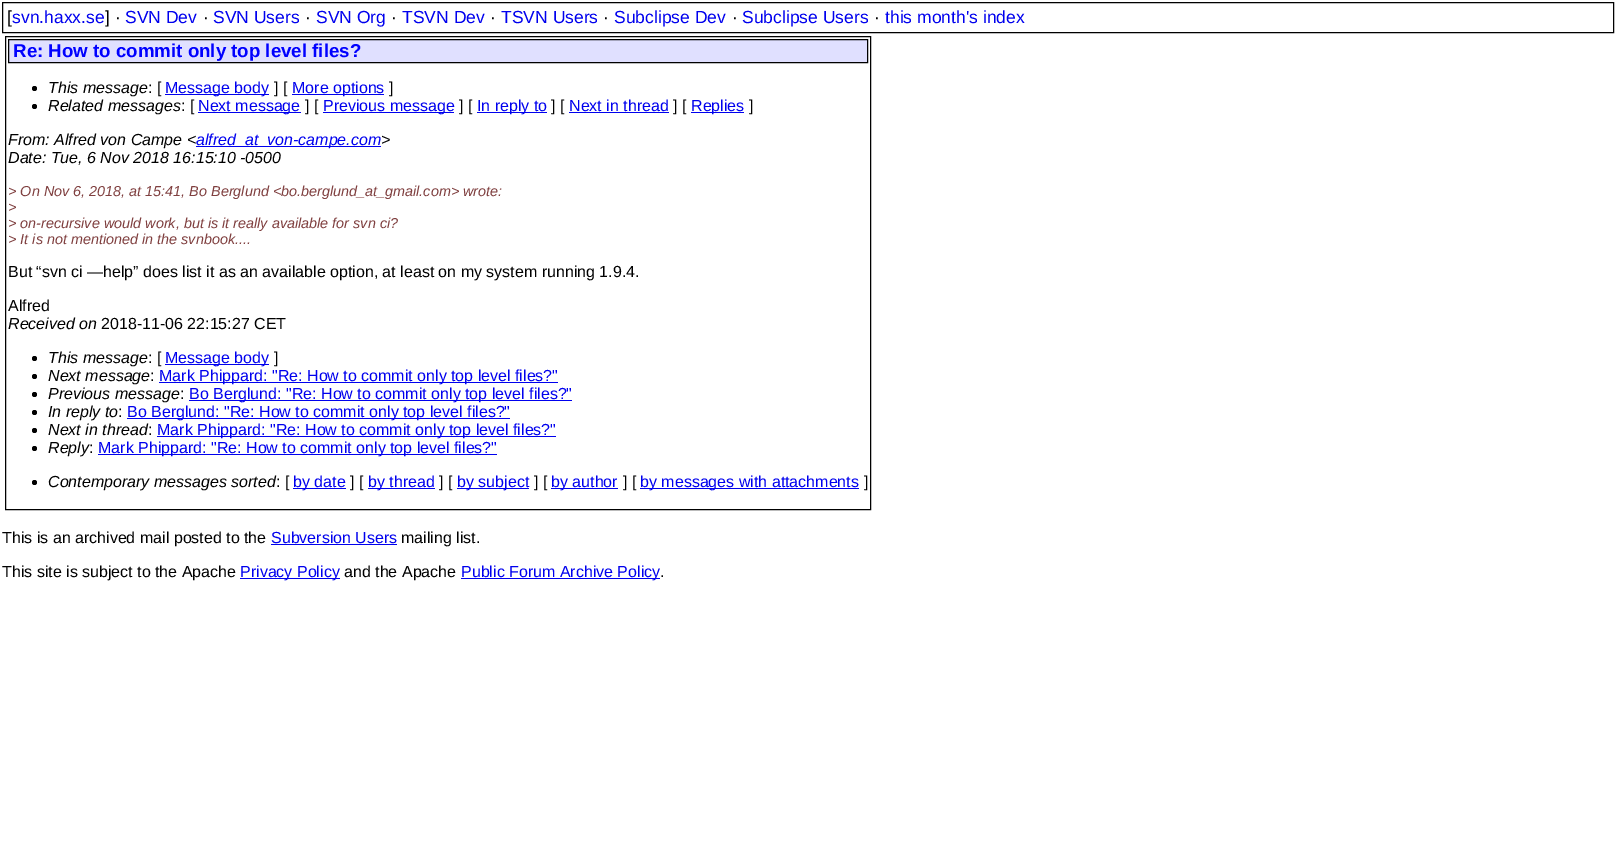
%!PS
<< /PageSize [1616 841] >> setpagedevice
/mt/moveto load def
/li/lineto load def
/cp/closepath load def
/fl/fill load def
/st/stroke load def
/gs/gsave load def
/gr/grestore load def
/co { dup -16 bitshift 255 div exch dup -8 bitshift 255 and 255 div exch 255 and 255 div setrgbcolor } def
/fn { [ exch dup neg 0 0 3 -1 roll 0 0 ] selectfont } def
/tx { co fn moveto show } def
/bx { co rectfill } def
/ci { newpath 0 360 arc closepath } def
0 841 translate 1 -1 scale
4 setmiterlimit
0 0 1616 841 16#FFFFFF bx
16#000000 co
2.5 2.5 1611 30 rectstroke
5.5 36.5 865 473 rectstroke
16#E0E0FF co
8.5 39.5 mt 867.5 39.5 li 867.5 62.5 li 8.5 62.5 li cp gs fl gr
16#000000 co
st
34.5 88.5 2.5 ci fl
165 94 104 1 16#0000EE bx
292 94 92 1 16#0000EE bx
16#000000 co
34.5 106.5 2.5 ci fl
198 112 103 1 16#0000EE bx
323 112 131 1 16#0000EE bx
477 112 70 1 16#0000EE bx
569 112 100 1 16#0000EE bx
691 112 53 1 16#0000EE bx
196 146 185 1 16#0000EE bx
16#000000 co
34.5 358.5 2.5 ci fl
165 364 104 1 16#0000EE bx
16#000000 co
34.5 376.5 2.5 ci fl
159 382 399 1 16#0000EE bx
16#000000 co
34.5 394.5 2.5 ci fl
189 400 383 1 16#0000EE bx
16#000000 co
34.5 412.5 2.5 ci fl
127 418 383 1 16#0000EE bx
16#000000 co
34.5 430.5 2.5 ci fl
157 436 399 1 16#0000EE bx
16#000000 co
34.5 448.5 2.5 ci fl
98 454 399 1 16#0000EE bx
16#000000 co
34.5 482.5 2.5 ci fl
293 488 53 1 16#0000EE bx
368 488 67 1 16#0000EE bx
457 488 72 1 16#0000EE bx
551 488 67 1 16#0000EE bx
640 488 219 1 16#0000EE bx
271 544 126 1 16#0000EE bx
240 578 100 1 16#0000EE bx
461 578 199 1 16#0000EE bx
([) 7 23 /LiberationSans-Regular 17.5 16#000000 tx
(svn.haxx.se) 12 23 /LiberationSans-Regular 17.5 16#0000EE tx
(] ·) 105 23 /LiberationSans-Regular 17.5 16#000000 tx
(SVN Dev) 125 23 /LiberationSans-Regular 17.5 16#0000EE tx
(·) 203 23 /LiberationSans-Regular 17.5 16#000000 tx
(SVN Users) 213 23 /LiberationSans-Regular 17.5 16#0000EE tx
(·) 305 23 /LiberationSans-Regular 17.5 16#000000 tx
(SVN Org) 316 23 /LiberationSans-Regular 17.5 16#0000EE tx
(·) 391 23 /LiberationSans-Regular 17.5 16#000000 tx
(TSVN Dev) 402 23 /LiberationSans-Regular 17.5 16#0000EE tx
(·) 490 23 /LiberationSans-Regular 17.5 16#000000 tx
(TSVN Users) 501 23 /LiberationSans-Regular 17.5 16#0000EE tx
(·) 603 23 /LiberationSans-Regular 17.5 16#000000 tx
(Subclipse Dev) 614 23 /LiberationSans-Regular 17.5 16#0000EE tx
(·) 732 23 /LiberationSans-Regular 17.5 16#000000 tx
(Subclipse Users) 742 23 /LiberationSans-Regular 17.5 16#0000EE tx
(·) 874 23 /LiberationSans-Regular 17.5 16#000000 tx
(this month's index) 885 23 /LiberationSans-Regular 17.5 16#0000EE tx
(Re: How to commit only top level files?) 13 57 /LiberationSans-Bold 18.7 16#0000FF tx
(This message) 48 93 /LiberationSans-Italic 16 16#000000 tx
(: [) 148 93 /LiberationSans-Regular 16 16#000000 tx
(Message body) 165 93 /LiberationSans-Regular 16 16#0000EE tx
(] [) 274 93 /LiberationSans-Regular 16 16#000000 tx
(More options) 292 93 /LiberationSans-Regular 16 16#0000EE tx
(]) 389 93 /LiberationSans-Regular 16 16#000000 tx
(Related messages) 48 111 /LiberationSans-Italic 16 16#000000 tx
(: [) 181 111 /LiberationSans-Regular 16 16#000000 tx
(Next message) 198 111 /LiberationSans-Regular 16 16#0000EE tx
(] [) 305 111 /LiberationSans-Regular 16 16#000000 tx
(Previous message) 323 111 /LiberationSans-Regular 16 16#0000EE tx
(] [) 459 111 /LiberationSans-Regular 16 16#000000 tx
(In reply to) 477 111 /LiberationSans-Regular 16 16#0000EE tx
(] [) 551 111 /LiberationSans-Regular 16 16#000000 tx
(Next in thread) 569 111 /LiberationSans-Regular 16 16#0000EE tx
(] [) 673 111 /LiberationSans-Regular 16 16#000000 tx
(Replies) 691 111 /LiberationSans-Regular 16 16#0000EE tx
(]) 749 111 /LiberationSans-Regular 16 16#000000 tx
(From: Alfred von Campe <) 8 145 /LiberationSans-Italic 16 16#000000 tx
(alfred_at_von-campe.com) 196 145 /LiberationSans-Italic 16 16#0000EE tx
(>) 381 145 /LiberationSans-Italic 16 16#000000 tx
(Date: Tue, 6 Nov 2018 16:15:10 -0500) 8 163 /LiberationSans-Italic 16 16#000000 tx
(> On Nov 6, 2018, at 15:41, Bo Berglund <bo.berglund_at_gmail.com> wrote:) 8 196 /LiberationSans-Italic 14.4 16#804040 tx
(>) 8 212 /LiberationSans-Italic 14.4 16#804040 tx
(> on-recursive would work, but is it really available for svn ci?) 8 228 /LiberationSans-Italic 14.4 16#804040 tx
(> It is not mentioned in the svnbook....) 8 244 /LiberationSans-Italic 14.4 16#804040 tx
(But “svn ci —help” does list it as an available option, at least on my system running 1.9.4.) 8 277 /LiberationSans-Regular 16 16#000000 tx
(Alfred) 8 311 /LiberationSans-Regular 16 16#000000 tx
(Received on) 8 329 /LiberationSans-Italic 16 16#000000 tx
(2018-11-06 22:15:27 CET) 101 329 /LiberationSans-Regular 16 16#000000 tx
(This message) 48 363 /LiberationSans-Italic 16 16#000000 tx
(: [) 148 363 /LiberationSans-Regular 16 16#000000 tx
(Message body) 165 363 /LiberationSans-Regular 16 16#0000EE tx
(]) 274 363 /LiberationSans-Regular 16 16#000000 tx
(Next message) 48 381 /LiberationSans-Italic 16 16#000000 tx
(:) 150 381 /LiberationSans-Regular 16 16#000000 tx
(Mark Phippard: "Re: How to commit only top level files?") 159 381 /LiberationSans-Regular 16 16#0000EE tx
(Previous message) 48 399 /LiberationSans-Italic 16 16#000000 tx
(:) 180 399 /LiberationSans-Regular 16 16#000000 tx
(Bo Berglund: "Re: How to commit only top level files?") 189 399 /LiberationSans-Regular 16 16#0000EE tx
(In reply to) 48 417 /LiberationSans-Italic 16 16#000000 tx
(:) 118 417 /LiberationSans-Regular 16 16#000000 tx
(Bo Berglund: "Re: How to commit only top level files?") 127 417 /LiberationSans-Regular 16 16#0000EE tx
(Next in thread) 48 435 /LiberationSans-Italic 16 16#000000 tx
(:) 148 435 /LiberationSans-Regular 16 16#000000 tx
(Mark Phippard: "Re: How to commit only top level files?") 157 435 /LiberationSans-Regular 16 16#0000EE tx
(Reply) 48 453 /LiberationSans-Italic 16 16#000000 tx
(:) 89 453 /LiberationSans-Regular 16 16#000000 tx
(Mark Phippard: "Re: How to commit only top level files?") 98 453 /LiberationSans-Regular 16 16#0000EE tx
(Contemporary messages sorted) 48 487 /LiberationSans-Italic 16 16#000000 tx
(: [) 276 487 /LiberationSans-Regular 16 16#000000 tx
(by date) 293 487 /LiberationSans-Regular 16 16#0000EE tx
(] [) 350 487 /LiberationSans-Regular 16 16#000000 tx
(by thread) 368 487 /LiberationSans-Regular 16 16#0000EE tx
(] [) 439 487 /LiberationSans-Regular 16 16#000000 tx
(by subject) 457 487 /LiberationSans-Regular 16 16#0000EE tx
(] [) 534 487 /LiberationSans-Regular 16 16#000000 tx
(by author) 551 487 /LiberationSans-Regular 16 16#0000EE tx
(] [) 623 487 /LiberationSans-Regular 16 16#000000 tx
(by messages with attachments) 640 487 /LiberationSans-Regular 16 16#0000EE tx
(]) 864 487 /LiberationSans-Regular 16 16#000000 tx
(This is an archived mail posted to the) 2 543 /LiberationSans-Regular 16 16#000000 tx
(Subversion Users) 271 543 /LiberationSans-Regular 16 16#0000EE tx
(mailing list.) 401 543 /LiberationSans-Regular 16 16#000000 tx
(This site is subject to the Apache) 2 577 /LiberationSans-Regular 16 16#000000 tx
(Privacy Policy) 240 577 /LiberationSans-Regular 16 16#0000EE tx
(and the Apache) 344 577 /LiberationSans-Regular 16 16#000000 tx
(Public Forum Archive Policy) 461 577 /LiberationSans-Regular 16 16#0000EE tx
(.) 660 577 /LiberationSans-Regular 16 16#000000 tx
showpage
